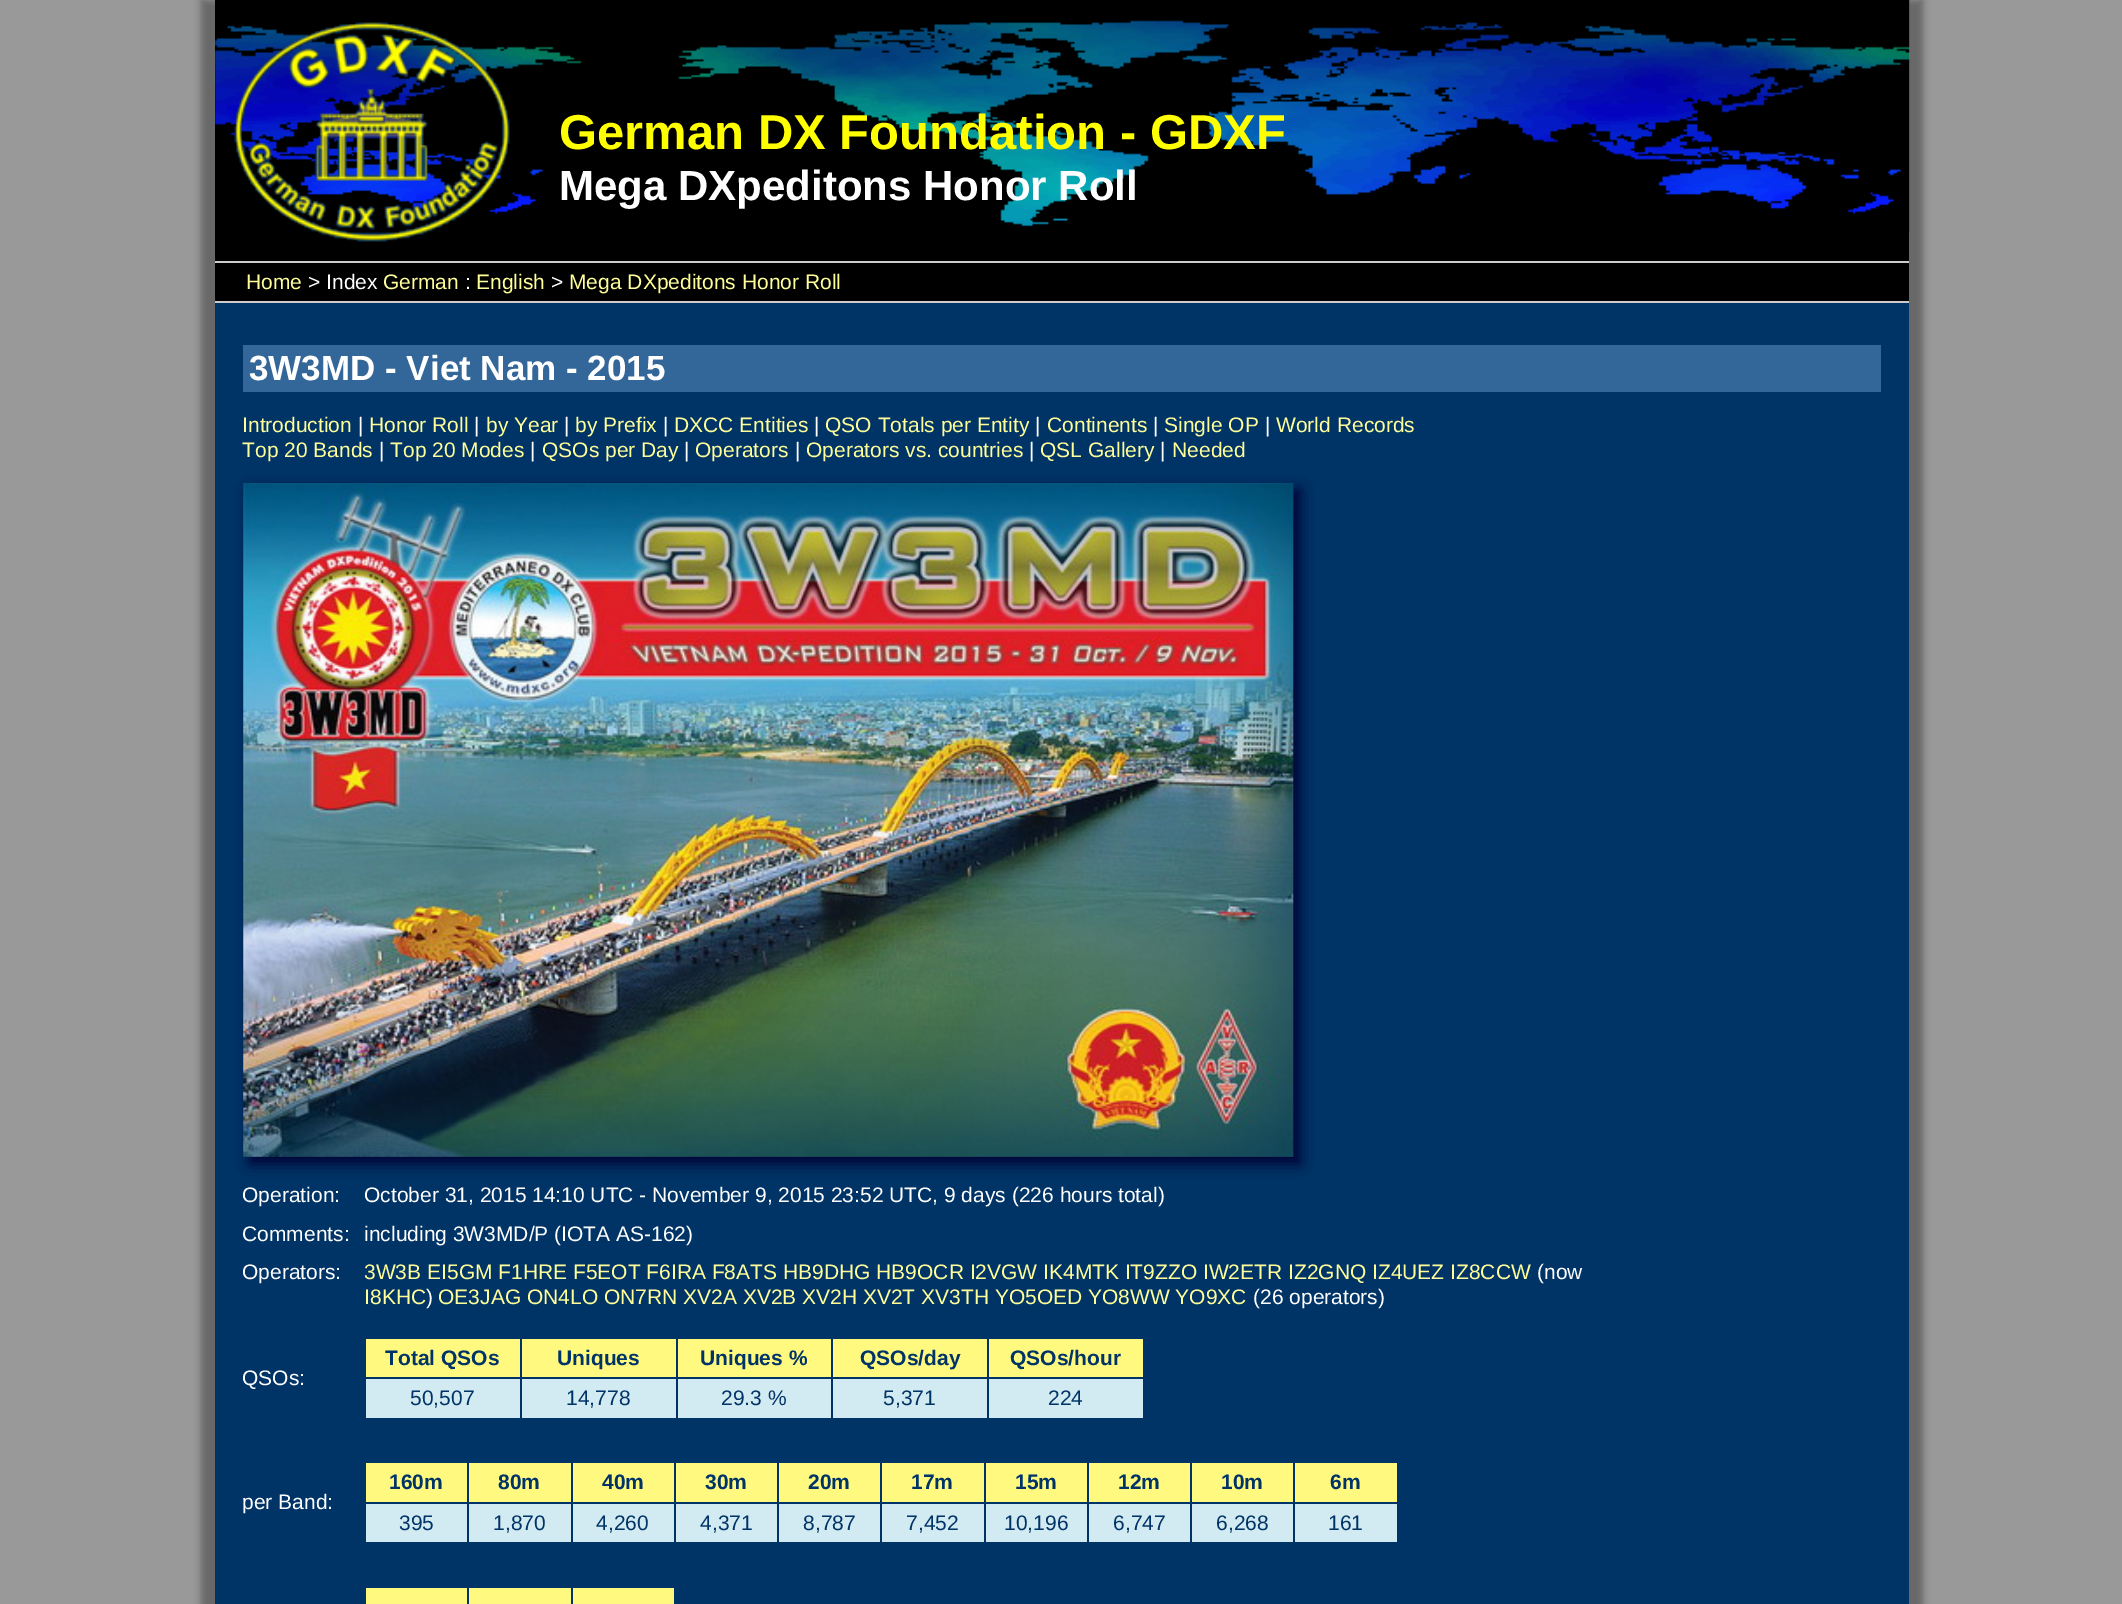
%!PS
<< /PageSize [2122 1604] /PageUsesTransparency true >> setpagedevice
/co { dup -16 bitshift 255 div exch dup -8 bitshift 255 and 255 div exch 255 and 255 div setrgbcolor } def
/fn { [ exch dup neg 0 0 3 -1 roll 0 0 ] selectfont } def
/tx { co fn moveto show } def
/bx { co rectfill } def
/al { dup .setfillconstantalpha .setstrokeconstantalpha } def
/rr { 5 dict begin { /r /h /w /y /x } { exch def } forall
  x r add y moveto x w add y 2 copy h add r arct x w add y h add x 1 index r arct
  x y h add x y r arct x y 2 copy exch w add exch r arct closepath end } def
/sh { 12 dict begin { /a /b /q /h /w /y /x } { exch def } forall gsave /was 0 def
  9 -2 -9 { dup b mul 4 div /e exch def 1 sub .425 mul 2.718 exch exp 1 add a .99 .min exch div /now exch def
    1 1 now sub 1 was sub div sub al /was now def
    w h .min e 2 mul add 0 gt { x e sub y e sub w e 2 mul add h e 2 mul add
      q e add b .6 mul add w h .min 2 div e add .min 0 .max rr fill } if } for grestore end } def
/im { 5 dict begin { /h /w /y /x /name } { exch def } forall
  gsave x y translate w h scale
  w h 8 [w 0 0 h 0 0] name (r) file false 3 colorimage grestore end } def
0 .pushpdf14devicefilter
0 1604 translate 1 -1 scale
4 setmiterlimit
0 0 2122 1604 16#999999 bx
16#666666 co
201 0 1694 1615 0 3.5 1 sh
229 0 1694 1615 0 3.5 1 sh
215 303 1694 1301 16#003366 bx
215 0 1694 261 16#000000 bx
(media/1.raw) 215 0 1695 233 im
(media/2.raw) 234 22 276 220 im
215 263 1694 38 16#000000 bx
215 261 1694 2 16#CCCCCC bx
215 301 1694 2 16#CCCCCC bx
243 345 1638 47 16#336699 bx
16#000033 co
250 490 1050 674 0 7 1 sh
(media/3.raw) 243 483 1051 674 im
366 1379 777 39 16#D2EAF1 bx
366 1339 154 38 16#FFF980 bx
522 1339 154 38 16#FFF980 bx
678 1339 153 38 16#FFF980 bx
833 1339 154 38 16#FFF980 bx
989 1339 154 38 16#FFF980 bx
520 1377 2 42 16#003366 bx
676 1377 2 42 16#003366 bx
831 1377 2 42 16#003366 bx
987 1377 2 42 16#003366 bx
366 1504 1031 38 16#D2EAF1 bx
366 1463 101 39 16#FFF980 bx
469 1463 102 39 16#FFF980 bx
573 1463 101 39 16#FFF980 bx
676 1463 101 39 16#FFF980 bx
779 1463 101 39 16#FFF980 bx
882 1463 102 39 16#FFF980 bx
986 1463 101 39 16#FFF980 bx
1089 1463 101 39 16#FFF980 bx
1192 1463 101 39 16#FFF980 bx
1295 1463 102 39 16#FFF980 bx
467 1502 2 42 16#003366 bx
571 1502 2 42 16#003366 bx
674 1502 2 42 16#003366 bx
777 1502 2 42 16#003366 bx
880 1502 2 42 16#003366 bx
984 1502 2 42 16#003366 bx
1087 1502 2 42 16#003366 bx
1190 1502 2 42 16#003366 bx
1293 1502 2 42 16#003366 bx
366 1588 101 16 16#FFF980 bx
469 1588 102 16 16#FFF980 bx
573 1588 101 16 16#FFF980 bx
(German DX Foundation - GDXF) 559 149 /LiberationSans-Bold 49 16#FFFF00 tx
(Mega DXpeditons Honor Roll) 559 200 /LiberationSans-Bold 42 16#FFFFFF tx
(Home) 246 289 /LiberationSans-Regular 21 16#FFFF99 tx
(> Index) 308 289 /LiberationSans-Regular 21 16#FFFFFF tx
(German) 383 289 /LiberationSans-Regular 21 16#FFFF99 tx
(:) 465 289 /LiberationSans-Regular 21 16#FFFFFF tx
(English) 476 289 /LiberationSans-Regular 21 16#FFFF99 tx
(>) 551 289 /LiberationSans-Regular 21 16#FFFFFF tx
(Mega DXpeditons Honor Roll) 569 289 /LiberationSans-Regular 21 16#FFFF99 tx
(3W3MD - Viet Nam - 2015) 249 380 /LiberationSans-Bold 35 16#FFFFFF tx
(Introduction) 242 432 /LiberationSans-Regular 21 16#FFFF99 tx
(|) 358 432 /LiberationSans-Regular 21 16#FFFFFF tx
(Honor Roll) 369 432 /LiberationSans-Regular 21 16#FFFF99 tx
(|) 474 432 /LiberationSans-Regular 21 16#FFFFFF tx
(by Year) 486 432 /LiberationSans-Regular 21 16#FFFF99 tx
(|) 564 432 /LiberationSans-Regular 21 16#FFFFFF tx
(by Prefix) 575 432 /LiberationSans-Regular 21 16#FFFF99 tx
(|) 663 432 /LiberationSans-Regular 21 16#FFFFFF tx
(DXCC Entities) 674 432 /LiberationSans-Regular 21 16#FFFF99 tx
(|) 814 432 /LiberationSans-Regular 21 16#FFFFFF tx
(QSO Totals per Entity) 825 432 /LiberationSans-Regular 21 16#FFFF99 tx
(|) 1035 432 /LiberationSans-Regular 21 16#FFFFFF tx
(Continents) 1047 432 /LiberationSans-Regular 21 16#FFFF99 tx
(|) 1153 432 /LiberationSans-Regular 21 16#FFFFFF tx
(Single OP) 1164 432 /LiberationSans-Regular 21 16#FFFF99 tx
(|) 1265 432 /LiberationSans-Regular 21 16#FFFFFF tx
(World Records) 1276 432 /LiberationSans-Regular 21 16#FFFF99 tx
(Top 20 Bands) 242 457 /LiberationSans-Regular 21 16#FFFF99 tx
(|) 379 457 /LiberationSans-Regular 21 16#FFFFFF tx
(Top 20 Modes) 390 457 /LiberationSans-Regular 21 16#FFFF99 tx
(|) 530 457 /LiberationSans-Regular 21 16#FFFFFF tx
(QSOs per Day) 542 457 /LiberationSans-Regular 21 16#FFFF99 tx
(|) 684 457 /LiberationSans-Regular 21 16#FFFFFF tx
(Operators) 695 457 /LiberationSans-Regular 21 16#FFFF99 tx
(|) 795 457 /LiberationSans-Regular 21 16#FFFFFF tx
(Operators vs. countries) 806 457 /LiberationSans-Regular 21 16#FFFF99 tx
(|) 1029 457 /LiberationSans-Regular 21 16#FFFFFF tx
(QSL Gallery) 1040 457 /LiberationSans-Regular 21 16#FFFF99 tx
(|) 1160 457 /LiberationSans-Regular 21 16#FFFFFF tx
(Needed) 1172 457 /LiberationSans-Regular 21 16#FFFF99 tx
(Operation:) 242 1202 /LiberationSans-Regular 21 16#FFFFFF tx
(October 31, 2015 14:10 UTC - November 9, 2015 23:52 UTC, 9 days \(226 hours total\)) 364 1202 /LiberationSans-Regular 21 16#FFFFFF tx
(Comments:) 242 1241 /LiberationSans-Regular 21 16#FFFFFF tx
(including 3W3MD/P \(IOTA AS-162\)) 364 1241 /LiberationSans-Regular 21 16#FFFFFF tx
(Operators:) 242 1279 /LiberationSans-Regular 21 16#FFFFFF tx
(3W3B EI5GM F1HRE F5EOT F6IRA F8ATS HB9DHG HB9OCR I2VGW IK4MTK IT9ZZO IW2ETR IZ2GNQ IZ4UEZ IZ8CCW) 364 1279 /LiberationSans-Regular 21 16#FFFF99 tx
(\(now) 1537 1279 /LiberationSans-Regular 21 16#FFFFFF tx
(I8KHC) 364 1304 /LiberationSans-Regular 21 16#FFFF99 tx
(\)) 426 1304 /LiberationSans-Regular 21 16#FFFFFF tx
(OE3JAG ON4LO ON7RN XV2A XV2B XV2H XV2T XV3TH YO5OED YO8WW YO9XC) 438 1304 /LiberationSans-Regular 21 16#FFFF99 tx
(\(26 operators\)) 1253 1304 /LiberationSans-Regular 21 16#FFFFFF tx
(QSOs:) 242 1385 /LiberationSans-Regular 21 16#FFFFFF tx
(Total QSOs) 385 1365 /LiberationSans-Bold 21 16#003366 tx
(Uniques) 557 1365 /LiberationSans-Bold 21 16#003366 tx
(Uniques %) 700 1365 /LiberationSans-Bold 21 16#003366 tx
(QSOs/day) 860 1365 /LiberationSans-Bold 21 16#003366 tx
(QSOs/hour) 1010 1365 /LiberationSans-Bold 21 16#003366 tx
(50,507) 410 1405 /LiberationSans-Regular 21 16#003366 tx
(14,778) 566 1405 /LiberationSans-Regular 21 16#003366 tx
(29.3 %) 721 1405 /LiberationSans-Regular 21 16#003366 tx
(5,371) 883 1405 /LiberationSans-Regular 21 16#003366 tx
(224) 1048 1405 /LiberationSans-Regular 21 16#003366 tx
(per Band:) 242 1509 /LiberationSans-Regular 21 16#FFFFFF tx
(160m) 389 1489 /LiberationSans-Bold 21 16#003366 tx
(80m) 498 1489 /LiberationSans-Bold 21 16#003366 tx
(40m) 602 1489 /LiberationSans-Bold 21 16#003366 tx
(30m) 705 1489 /LiberationSans-Bold 21 16#003366 tx
(20m) 808 1489 /LiberationSans-Bold 21 16#003366 tx
(17m) 911 1489 /LiberationSans-Bold 21 16#003366 tx
(15m) 1015 1489 /LiberationSans-Bold 21 16#003366 tx
(12m) 1118 1489 /LiberationSans-Bold 21 16#003366 tx
(10m) 1221 1489 /LiberationSans-Bold 21 16#003366 tx
(6m) 1330 1489 /LiberationSans-Bold 21 16#003366 tx
(395) 399 1530 /LiberationSans-Regular 21 16#003366 tx
(1,870) 493 1530 /LiberationSans-Regular 21 16#003366 tx
(4,260) 596 1530 /LiberationSans-Regular 21 16#003366 tx
(4,371) 700 1530 /LiberationSans-Regular 21 16#003366 tx
(8,787) 803 1530 /LiberationSans-Regular 21 16#003366 tx
(7,452) 906 1530 /LiberationSans-Regular 21 16#003366 tx
(10,196) 1004 1530 /LiberationSans-Regular 21 16#003366 tx
(6,747) 1113 1530 /LiberationSans-Regular 21 16#003366 tx
(6,268) 1216 1530 /LiberationSans-Regular 21 16#003366 tx
(161) 1328 1530 /LiberationSans-Regular 21 16#003366 tx
.poppdf14devicefilter showpage
